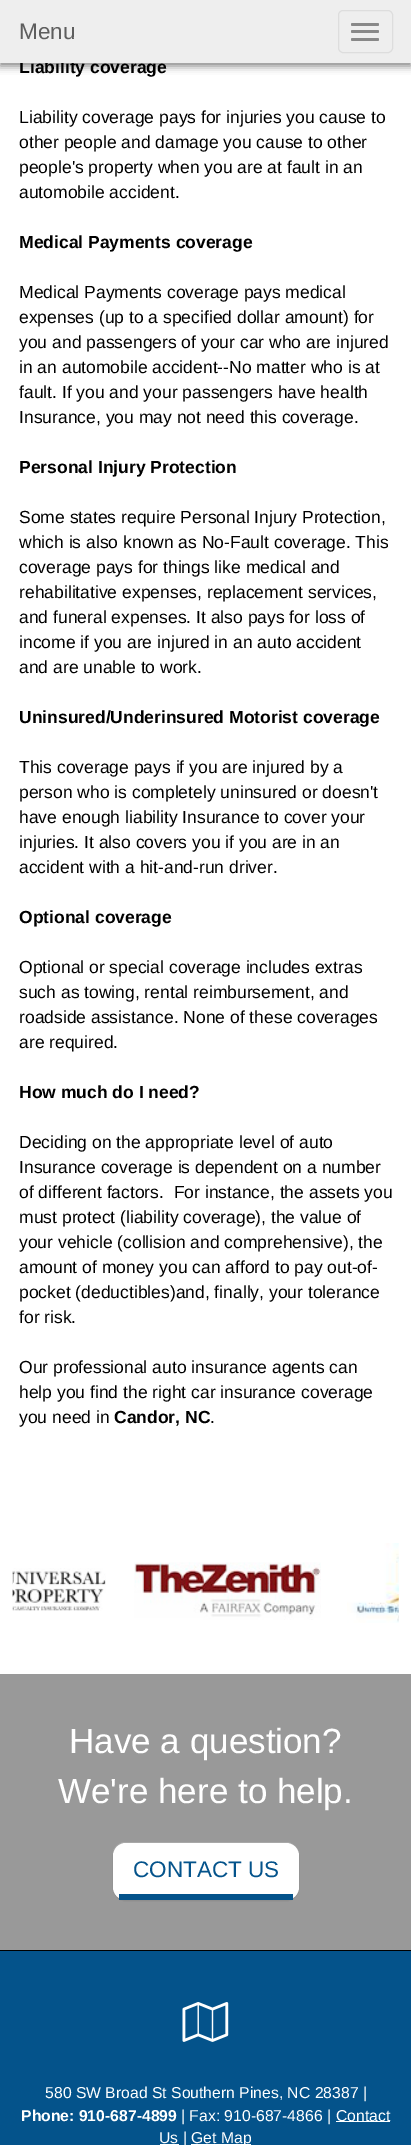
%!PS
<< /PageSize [411 2145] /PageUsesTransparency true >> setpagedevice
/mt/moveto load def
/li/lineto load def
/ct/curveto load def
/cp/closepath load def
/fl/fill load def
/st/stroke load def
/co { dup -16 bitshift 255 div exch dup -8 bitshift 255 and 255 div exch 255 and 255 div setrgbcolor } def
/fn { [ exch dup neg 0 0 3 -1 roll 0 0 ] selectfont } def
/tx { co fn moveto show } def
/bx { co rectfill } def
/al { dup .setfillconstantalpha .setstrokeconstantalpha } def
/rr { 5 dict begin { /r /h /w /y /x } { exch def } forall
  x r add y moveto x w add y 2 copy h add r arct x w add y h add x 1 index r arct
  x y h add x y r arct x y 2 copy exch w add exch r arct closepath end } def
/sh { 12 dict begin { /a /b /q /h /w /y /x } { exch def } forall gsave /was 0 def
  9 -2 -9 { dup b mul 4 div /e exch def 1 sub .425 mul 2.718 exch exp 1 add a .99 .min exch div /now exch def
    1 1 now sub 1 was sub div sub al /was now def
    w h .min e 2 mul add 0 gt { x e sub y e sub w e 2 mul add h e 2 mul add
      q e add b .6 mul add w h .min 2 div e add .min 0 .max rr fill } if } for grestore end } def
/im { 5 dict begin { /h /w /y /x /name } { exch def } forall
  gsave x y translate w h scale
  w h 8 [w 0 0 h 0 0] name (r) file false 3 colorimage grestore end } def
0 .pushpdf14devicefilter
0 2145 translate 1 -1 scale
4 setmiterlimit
0 0 411 2145 16#FFFFFF bx
16#000000 co
0 4 411 62 0 4 .5 sh
(media/1.raw) 12 1568 94 43 im
(media/2.raw) 134 1562 187 58 im
(media/3.raw) 347 1543 52 80 im
0 1674 411 276 16#999999 bx
16#000000 co
113 1844 186 57 13 .5 .07 sh
16#FFFFFF co
113 1843 186 57 13 rr fl
0.15 al
125 1844 mt 286 1844 li 292 1844 297 1848 299 1853 ct 298 1847 292 1842 286 1842 ct 125 1842 li 120 1842 115 1846 113 1851 ct 115 1847 120 1844 125 1844 ct cp fl
1 al
119 1894 174 6 16#04538B bx
0 1951 411 194 16#04538B bx
0 1950 411 1 16#000000 bx
(media/4.raw) 182 2002 47 40 im
336 2121 54 1 16#FFFFFF bx
160 2144 19 1 16#FFFFFF bx
191 2144 60 1 16#FFFFFF bx
(Liability coverage) 19 73 /LiberationSans-Bold 17.5 16#000000 tx
0 0 411 63 16#EEEEEE bx
16#DDDDDD co
338.5 10.5 54 42 4.5 rr st
16#888888 co
351 38 28 3 1.5 rr fl
351 30 28 3 1.5 rr fl
351 23 28 3 1.5 rr fl
(Menu) 19 39 /LiberationSans-Regular 22.5 16#5E5E5E tx
(Liability coverage pays for injuries you cause to) 19 123 /LiberationSans-Regular 17.5 16#000000 tx
(other people and damage you cause to other) 19 148 /LiberationSans-Regular 17.5 16#000000 tx
(people's property when you are at fault in an) 19 173 /LiberationSans-Regular 17.5 16#000000 tx
(automobile accident.) 19 198 /LiberationSans-Regular 17.5 16#000000 tx
(Medical Payments coverage) 19 248 /LiberationSans-Bold 17.5 16#000000 tx
(Medical Payments coverage pays medical) 19 298 /LiberationSans-Regular 17.5 16#000000 tx
(expenses \(up to a specified dollar amount\) for) 19 323 /LiberationSans-Regular 17.5 16#000000 tx
(you and passengers of your car who are injured) 19 348 /LiberationSans-Regular 17.5 16#000000 tx
(in an automobile accident--No matter who is at) 19 373 /LiberationSans-Regular 17.5 16#000000 tx
(fault. If you and your passengers have health) 19 398 /LiberationSans-Regular 17.5 16#000000 tx
(Insurance, you may not need this coverage.) 19 423 /LiberationSans-Regular 17.5 16#000000 tx
(Personal Injury Protection) 19 473 /LiberationSans-Bold 17.5 16#000000 tx
(Some states require Personal Injury Protection,) 19 523 /LiberationSans-Regular 17.5 16#000000 tx
(which is also known as No-Fault coverage. This) 19 548 /LiberationSans-Regular 17.5 16#000000 tx
(coverage pays for things like medical and) 19 573 /LiberationSans-Regular 17.5 16#000000 tx
(rehabilitative expenses, replacement services,) 19 598 /LiberationSans-Regular 17.5 16#000000 tx
(and funeral expenses. It also pays for loss of) 19 623 /LiberationSans-Regular 17.5 16#000000 tx
(income if you are injured in an auto accident) 19 648 /LiberationSans-Regular 17.5 16#000000 tx
(and are unable to work.) 19 673 /LiberationSans-Regular 17.5 16#000000 tx
(Uninsured/Underinsured Motorist coverage) 19 723 /LiberationSans-Bold 17.5 16#000000 tx
(This coverage pays if you are injured by a) 19 773 /LiberationSans-Regular 17.5 16#000000 tx
(person who is completely uninsured or doesn't) 19 798 /LiberationSans-Regular 17.5 16#000000 tx
(have enough liability Insurance to cover your) 19 823 /LiberationSans-Regular 17.5 16#000000 tx
(injuries. It also covers you if you are in an) 19 848 /LiberationSans-Regular 17.5 16#000000 tx
(accident with a hit-and-run driver.) 19 873 /LiberationSans-Regular 17.5 16#000000 tx
(Optional coverage) 19 923 /LiberationSans-Bold 17.5 16#000000 tx
(Optional or special coverage includes extras) 19 973 /LiberationSans-Regular 17.5 16#000000 tx
(such as towing, rental reimbursement, and) 19 998 /LiberationSans-Regular 17.5 16#000000 tx
(roadside assistance. None of these coverages) 19 1023 /LiberationSans-Regular 17.5 16#000000 tx
(are required.) 19 1048 /LiberationSans-Regular 17.5 16#000000 tx
(How much do I need?) 19 1098 /LiberationSans-Bold 17.5 16#000000 tx
(Deciding on the appropriate level of auto) 19 1148 /LiberationSans-Regular 17.5 16#000000 tx
(Insurance coverage is dependent on a number) 19 1173 /LiberationSans-Regular 17.5 16#000000 tx
(of different factors.  For instance, the assets you) 19 1198 /LiberationSans-Regular 17.5 16#000000 tx
(must protect \(liability coverage\), the value of) 19 1223 /LiberationSans-Regular 17.5 16#000000 tx
(your vehicle \(collision and comprehensive\), the) 19 1248 /LiberationSans-Regular 17.5 16#000000 tx
(amount of money you can afford to pay out-of-) 19 1273 /LiberationSans-Regular 17.5 16#000000 tx
(pocket \(deductibles\)and, finally, your tolerance) 19 1298 /LiberationSans-Regular 17.5 16#000000 tx
(for risk.) 19 1323 /LiberationSans-Regular 17.5 16#000000 tx
(Our professional auto insurance agents can) 19 1373 /LiberationSans-Regular 17.5 16#000000 tx
(help you find the right car insurance coverage) 19 1398 /LiberationSans-Regular 17.5 16#000000 tx
(you need in) 19 1423 /LiberationSans-Regular 17.5 16#000000 tx
(Candor, NC) 114 1423 /LiberationSans-Bold 17.5 16#000000 tx
(.) 210 1423 /LiberationSans-Regular 17.5 16#000000 tx
(Have a question?) 69 1753 /LiberationSans-Regular 35 16#FFFFFF tx
(We're here to help.) 58 1803 /LiberationSans-Regular 35 16#FFFFFF tx
(CONTACT US) 133 1877 /LiberationSans-Regular 22.5 16#04538B tx
(580 SW Broad St Southern Pines, NC 28387 |) 45 2098 /LiberationSans-Regular 15.75 16#FFFFFF tx
(Phone: 910-687-4899) 21 2121 /LiberationSans-Bold 15.75 16#FFFFFF tx
(| Fax: 910-687-4866 |) 181 2121 /LiberationSans-Regular 15.75 16#FFFFFF tx
(Contact) 336 2121 /LiberationSans-Regular 15.75 16#FFFFFF tx
(Us |) 159 2143 /LiberationSans-Regular 15.75 16#FFFFFF tx
(Get Map) 191 2143 /LiberationSans-Regular 15.75 16#FFFFFF tx
.poppdf14devicefilter showpage
